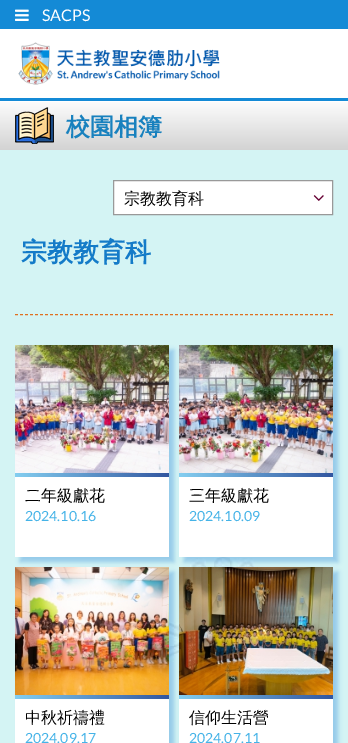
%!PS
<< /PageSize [348 743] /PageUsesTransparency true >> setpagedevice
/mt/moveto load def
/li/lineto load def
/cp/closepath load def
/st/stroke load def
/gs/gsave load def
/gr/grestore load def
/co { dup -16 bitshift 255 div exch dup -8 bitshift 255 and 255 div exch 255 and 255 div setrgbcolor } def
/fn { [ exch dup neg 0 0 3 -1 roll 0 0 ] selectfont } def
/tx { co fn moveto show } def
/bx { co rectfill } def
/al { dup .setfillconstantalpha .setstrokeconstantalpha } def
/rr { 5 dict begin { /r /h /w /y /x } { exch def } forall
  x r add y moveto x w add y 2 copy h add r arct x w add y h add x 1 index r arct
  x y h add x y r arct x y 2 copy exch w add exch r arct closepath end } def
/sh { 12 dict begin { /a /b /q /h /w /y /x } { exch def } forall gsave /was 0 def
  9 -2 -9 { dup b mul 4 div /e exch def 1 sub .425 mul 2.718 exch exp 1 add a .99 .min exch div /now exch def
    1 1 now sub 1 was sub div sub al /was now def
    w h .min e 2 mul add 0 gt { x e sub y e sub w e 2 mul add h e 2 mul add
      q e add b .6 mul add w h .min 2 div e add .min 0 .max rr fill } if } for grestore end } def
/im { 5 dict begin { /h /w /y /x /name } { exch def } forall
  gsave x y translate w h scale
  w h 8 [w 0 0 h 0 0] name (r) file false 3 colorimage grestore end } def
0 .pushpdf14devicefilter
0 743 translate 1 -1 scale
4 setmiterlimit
0 0 348 743 16#FFFFFF bx
0 0 348 29 16#148AD6 bx
(media/1.raw) 15 9 14 12 im
0 98 348 3 16#148AD6 bx
(media/2.raw) 18 42 202 43 im
gs 0 102 mt 348 102 li 348 150 li 0 150 li cp clip newpath
<< /ShadingType 2 /ColorSpace /DeviceRGB /Coords [174 101 174 150] /Extend [true true] /Function << /FunctionType 2 /Domain [0 1] /C0 [.992 .992 .992] /C1 [.827 .827 .827] /N 1 >> >> shfill gr
(media/3.raw) 15 107 39 37 im
0 150 348 593 16#D4F4F4 bx
(media/4.raw) 138 552 167 191 im
114 181 218 33 16#FFFFFF bx
(media/5.raw) 313 195 11 6 im
16#999999 co
113.5 180.5 219 34 rectstroke
16#E07020 co
[3 2] 0 setdash
15 314.5 mt 333 314.5 li st
16#0066CC co
20 350 154 212 0 2.5 .3 sh
15 477 154 80 16#FFFFFF bx
(media/6.raw) 15 345 154 128 im
gs 15 473 mt 169 473 li 169 477 li 15 477 li cp clip newpath
<< /ShadingType 2 /ColorSpace /DeviceRGB /Coords [15 475 169 475] /Extend [true true] /Function << /FunctionType 2 /Domain [0 1] /C0 [.518 .808 .941] /C1 [.196 .337 .627] /N 1 >> >> shfill gr
16#0066CC co
184 350 154 212 0 2.5 .3 sh
179 477 154 80 16#FFFFFF bx
(media/7.raw) 179 345 154 128 im
gs 179 473 mt 333 473 li 333 477 li 179 477 li cp clip newpath
<< /ShadingType 2 /ColorSpace /DeviceRGB /Coords [179 475 333 475] /Extend [true true] /Function << /FunctionType 2 /Domain [0 1] /C0 [.518 .808 .941] /C1 [.196 .337 .627] /N 1 >> >> shfill gr
16#0066CC co
20 572 154 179 0 2.5 .3 sh
15 699 154 44 16#FFFFFF bx
(media/8.raw) 15 567 154 128 im
gs 15 695 mt 169 695 li 169 699 li 15 699 li cp clip newpath
<< /ShadingType 2 /ColorSpace /DeviceRGB /Coords [15 697 169 697] /Extend [true true] /Function << /FunctionType 2 /Domain [0 1] /C0 [.518 .808 .941] /C1 [.196 .337 .627] /N 1 >> >> shfill gr
16#0066CC co
184 572 154 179 0 2.5 .3 sh
179 699 154 44 16#FFFFFF bx
(media/9.raw) 179 567 154 128 im
gs 179 695 mt 333 695 li 333 699 li 179 699 li cp clip newpath
<< /ShadingType 2 /ColorSpace /DeviceRGB /Coords [179 697 333 697] /Extend [true true] /Function << /FunctionType 2 /Domain [0 1] /C0 [.518 .808 .941] /C1 [.196 .337 .627] /N 1 >> >> shfill gr
(SACPS) 42 21 /Lato-Regular 16 16#FFFFFF tx
(校園相簿) 66 135 /WenQuanYiZenHei-Bold 24 16#1881BE tx
(宗教教育科) 124 204 /WenQuanYiZenHei-Medium 16 16#000000 tx
(宗教教育科) 21 261 /WenQuanYiZenHei-Bold 26 16#147BC8 tx
(二年級獻花) 25 501 /WenQuanYiZenHei-Medium 16 16#000000 tx
(2024.10.16) 25 521 /Lato-Regular 14 16#45B3E7 tx
(三年級獻花) 189 501 /WenQuanYiZenHei-Medium 16 16#000000 tx
(2024.10.09) 189 521 /Lato-Regular 14 16#45B3E7 tx
(中秋祈禱禮) 25 723 /WenQuanYiZenHei-Medium 16 16#000000 tx
(2024.09.17) 25 743 /Lato-Regular 14 16#45B3E7 tx
(信仰生活營) 189 723 /WenQuanYiZenHei-Medium 16 16#000000 tx
(2024.07.11) 189 743 /Lato-Regular 14 16#45B3E7 tx
.poppdf14devicefilter showpage
